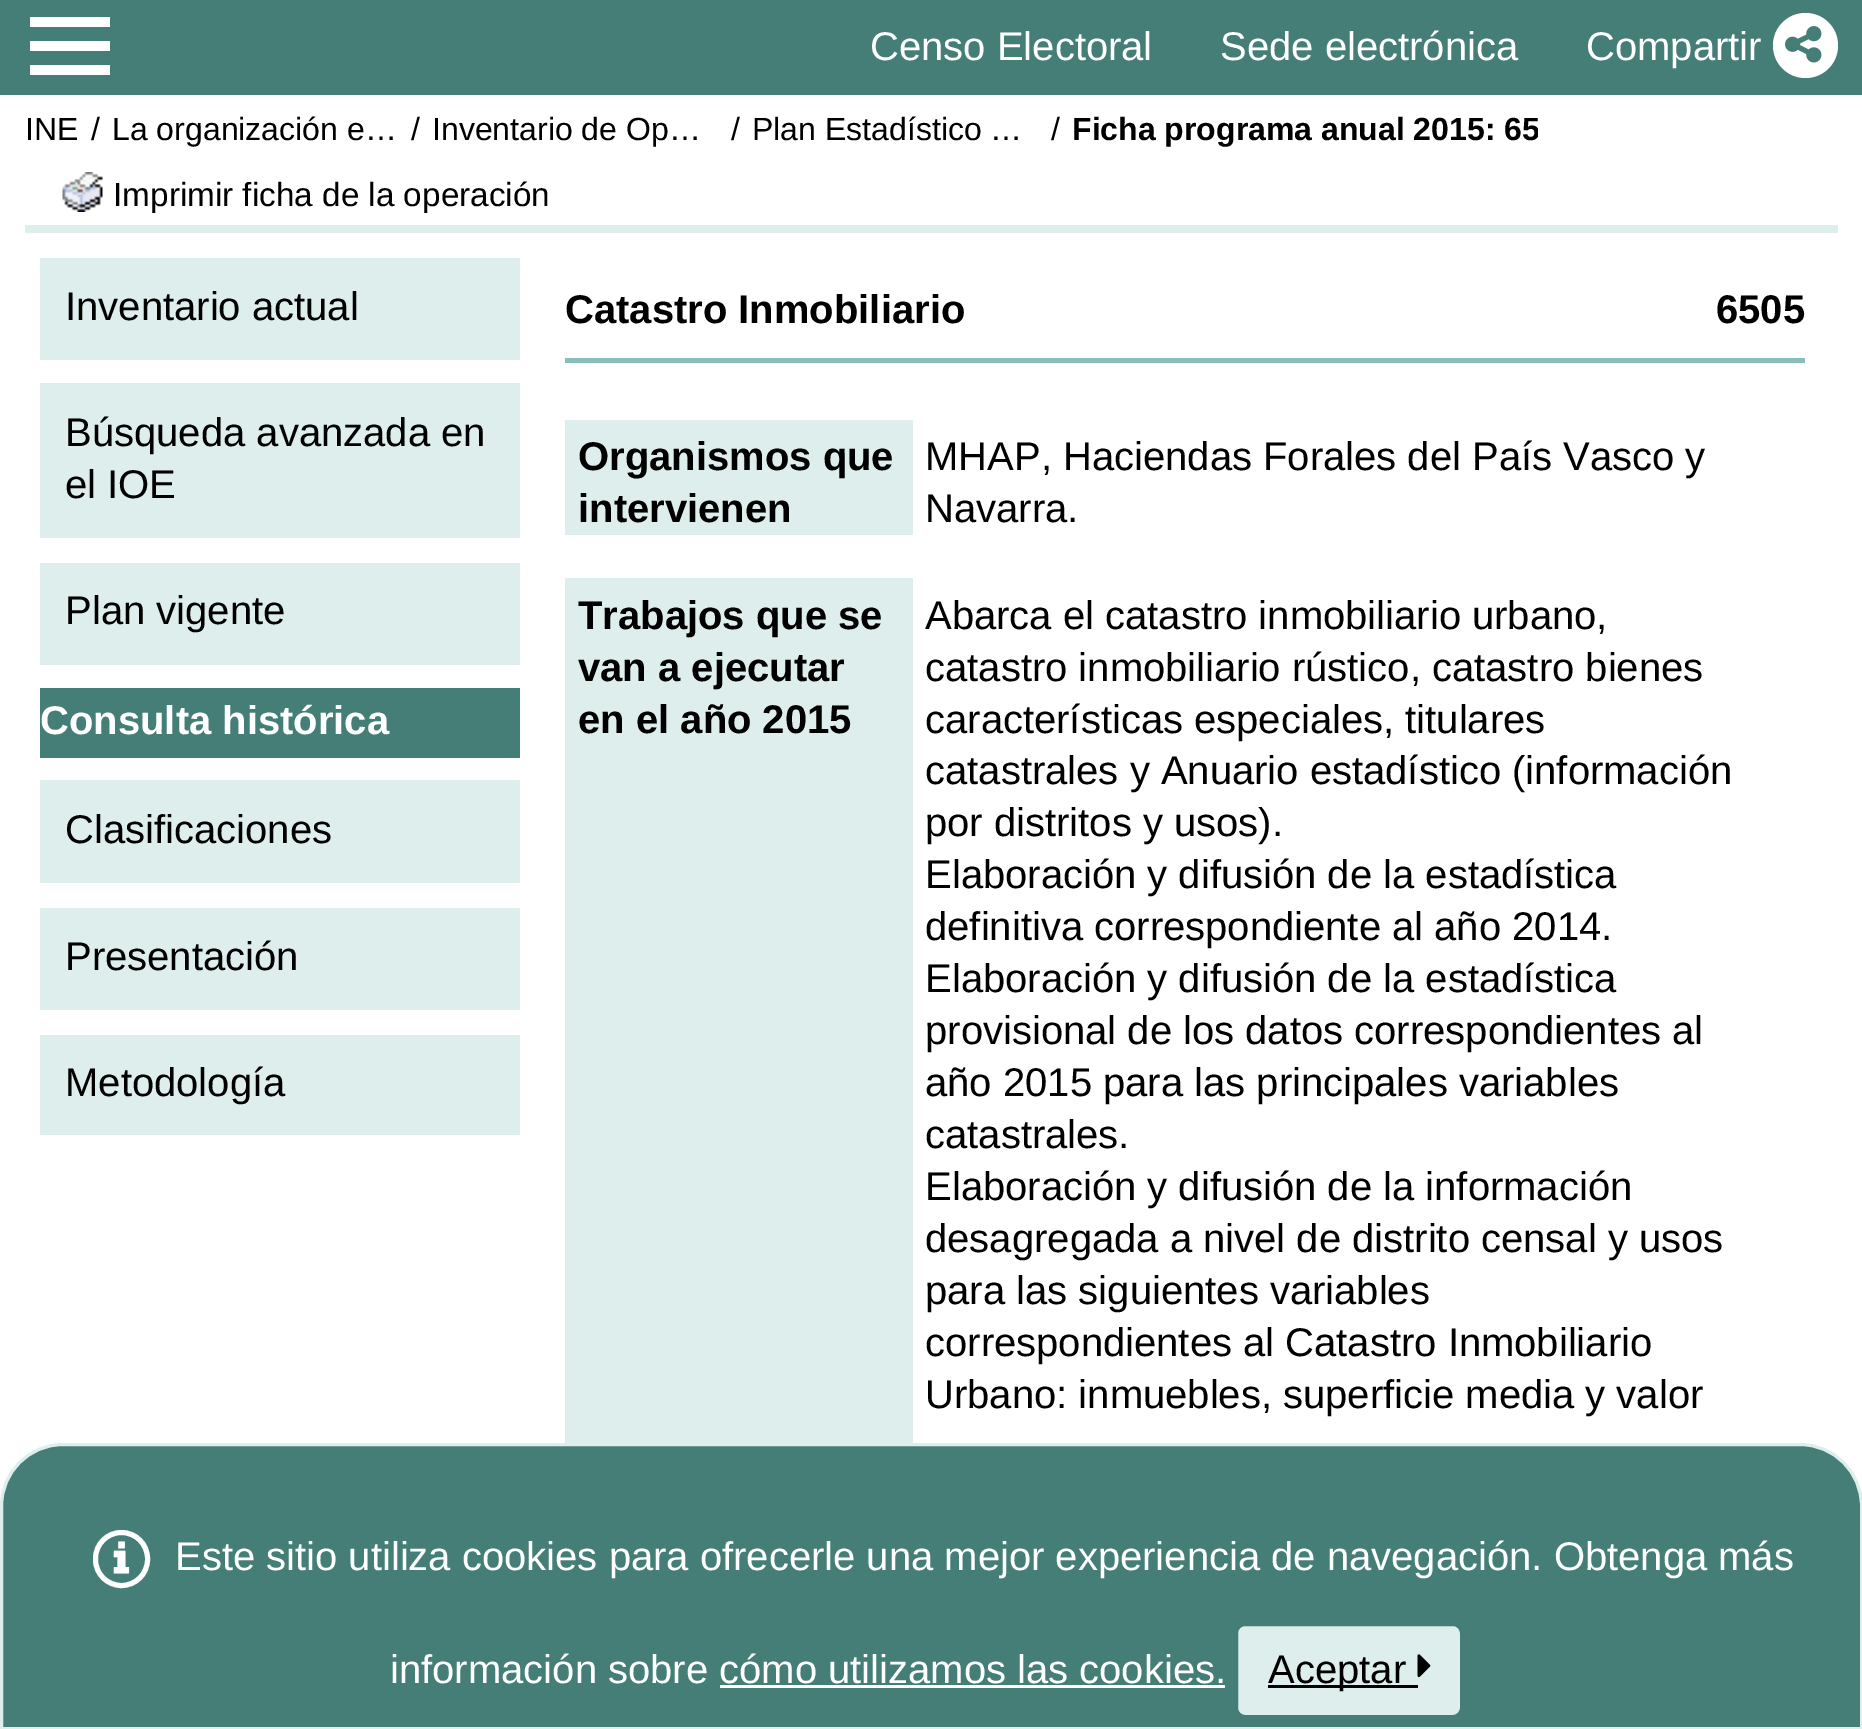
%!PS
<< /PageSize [1862 1729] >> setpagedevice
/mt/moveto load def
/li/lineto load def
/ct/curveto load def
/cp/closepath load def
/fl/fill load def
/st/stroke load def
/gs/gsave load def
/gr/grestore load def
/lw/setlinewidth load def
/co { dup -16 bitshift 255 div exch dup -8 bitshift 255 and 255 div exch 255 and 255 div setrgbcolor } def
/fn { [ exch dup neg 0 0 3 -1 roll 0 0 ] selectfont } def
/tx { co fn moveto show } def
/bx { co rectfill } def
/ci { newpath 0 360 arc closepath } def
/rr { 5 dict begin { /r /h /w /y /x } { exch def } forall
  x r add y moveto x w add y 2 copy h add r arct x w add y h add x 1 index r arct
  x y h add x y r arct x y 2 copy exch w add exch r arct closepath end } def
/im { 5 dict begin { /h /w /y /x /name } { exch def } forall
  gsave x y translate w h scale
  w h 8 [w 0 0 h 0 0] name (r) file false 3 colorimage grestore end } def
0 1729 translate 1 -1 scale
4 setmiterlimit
0 0 1862 1729 16#FFFFFF bx
0 0 1862 95 16#457E76 bx
16#FFFFFF co
110 26 mt 110 17 li 30 17 li 30 27 li 110 27 li cp 110 50 mt 110 41 li 30 41 li 30 51 li 110 51 li cp 110 74 mt 110 65 li 30 65 li 30 75 li 110 75 li cp fl
1805.5 45.5 32.5 ci fl
(media/1.raw) 1785 26 37 37 im
25 225 1813 8 16#DDEEEC bx
(media/2.raw) 62 172 41 40 im
40 258 480 102 16#DDEEEC bx
40 383 480 155 16#DDEEEC bx
40 563 480 102 16#DDEEEC bx
40 688 480 70 16#457E76 bx
40 780 480 103 16#DDEEEC bx
40 908 480 102 16#DDEEEC bx
40 1035 480 100 16#DDEEEC bx
565 358 1240 5 16#89BEBA bx
565 420 348 115 16#DDEEEC bx
565 578 348 865 16#DDEEEC bx
16#457E76 co
63 1444.5 mt 1800 1444.5 li 1834 1444.5 1861.5 1472 1861.5 1506 ct 1861.5 1728.5 li 1.5 1728.5 li 1.5 1506 li 1.5 1472 29 1444.5 63 1444.5 ct cp gs fl gr
16#DDEEEC co
3 lw
st
16#FFFFFF co
5 lw
95.5 1532.5 52 53 26 rr st
(media/3.raw) 113 1541 17 33 im
16#DDEEEC co
1236.5 1624.5 225 92 8.5 rr gs fl gr
16#457E76 co
3 lw
st
1268 1685 150 3 16#000000 bx
(media/4.raw) 1417 1654 14 24 im
720 1685 505 3 16#FFFFFF bx
(Censo Electoral) 870 60 /LiberationSans-Regular 40 16#FFFFFF tx
(Sede electrónica) 1220 60 /LiberationSans-Regular 40 16#FFFFFF tx
(Compartir) 1586 60 /LiberationSans-Regular 40 16#FFFFFF tx
(INE) 25 140 /LiberationSans-Regular 32 16#000000 tx
(/) 91 140 /LiberationSans-Regular 32 16#000000 tx
(La organización e…) 112 140 /LiberationSans-Regular 32 16#000000 tx
(/) 411 140 /LiberationSans-Regular 32 16#000000 tx
(Inventario de Op…) 432 140 /LiberationSans-Regular 32 16#000000 tx
(/) 731 140 /LiberationSans-Regular 32 16#000000 tx
(Plan Estadístico …) 752 140 /LiberationSans-Regular 32 16#000000 tx
(/) 1051 140 /LiberationSans-Regular 32 16#000000 tx
gs
1038 110 500 43 rectclip
(Ficha programa anual 2015: 65) 1072 140 /LiberationSans-Bold 32 16#000000 tx
gr
(Imprimir ficha de la operación) 113 206 /LiberationSans-Regular 33.3 16#000000 tx
(Inventario actual) 65 320 /LiberationSans-Regular 40 16#000000 tx
(Búsqueda avanzada en) 65 446 /LiberationSans-Regular 40 16#000000 tx
(el IOE) 65 498 /LiberationSans-Regular 40 16#000000 tx
(Plan vigente) 65 624 /LiberationSans-Regular 40 16#000000 tx
(Consulta histórica) 40 734 /LiberationSans-Bold 40 16#FFFFFF tx
(Clasificaciones) 65 843 /LiberationSans-Regular 40 16#000000 tx
(Presentación) 65 970 /LiberationSans-Regular 40 16#000000 tx
(Metodología) 65 1096 /LiberationSans-Regular 40 16#000000 tx
(Catastro Inmobiliario) 565 323 /LiberationSans-Bold 40 16#000000 tx
(6505) 1716 323 /LiberationSans-Bold 40 16#000000 tx
(Organismos que) 578 470 /LiberationSans-Bold 40 16#000000 tx
(intervienen) 578 522 /LiberationSans-Bold 40 16#000000 tx
(MHAP, Haciendas Forales del País Vasco y) 925 470 /LiberationSans-Regular 40 16#000000 tx
(Navarra.) 925 522 /LiberationSans-Regular 40 16#000000 tx
(Trabajos que se) 578 629 /LiberationSans-Bold 40 16#000000 tx
(van a ejecutar) 578 681 /LiberationSans-Bold 40 16#000000 tx
(en el año 2015) 578 733 /LiberationSans-Bold 40 16#000000 tx
(Abarca el catastro inmobiliario urbano,) 925 629 /LiberationSans-Regular 40 16#000000 tx
(catastro inmobiliario rústico, catastro bienes) 925 681 /LiberationSans-Regular 40 16#000000 tx
(características especiales, titulares) 925 733 /LiberationSans-Regular 40 16#000000 tx
(catastrales y Anuario estadístico \(información) 925 784 /LiberationSans-Regular 40 16#000000 tx
(por distritos y usos\).) 925 836 /LiberationSans-Regular 40 16#000000 tx
(Elaboración y difusión de la estadística) 925 888 /LiberationSans-Regular 40 16#000000 tx
(definitiva correspondiente al año 2014.) 925 940 /LiberationSans-Regular 40 16#000000 tx
(Elaboración y difusión de la estadística) 925 992 /LiberationSans-Regular 40 16#000000 tx
(provisional de los datos correspondientes al) 925 1044 /LiberationSans-Regular 40 16#000000 tx
(año 2015 para las principales variables) 925 1096 /LiberationSans-Regular 40 16#000000 tx
(catastrales.) 925 1148 /LiberationSans-Regular 40 16#000000 tx
(Elaboración y difusión de la información) 925 1200 /LiberationSans-Regular 40 16#000000 tx
(desagregada a nivel de distrito censal y usos) 925 1252 /LiberationSans-Regular 40 16#000000 tx
(para las siguientes variables) 925 1304 /LiberationSans-Regular 40 16#000000 tx
(correspondientes al Catastro Inmobiliario) 925 1356 /LiberationSans-Regular 40 16#000000 tx
(Urbano: inmuebles, superficie media y valor) 925 1408 /LiberationSans-Regular 40 16#000000 tx
(Este sitio utiliza cookies para ofrecerle una mejor experiencia de navegación. Obtenga más) 175 1570 /LiberationSans-Regular 40 16#FFFFFF tx
(información sobre cómo utilizamos las cookies.) 390 1683 /LiberationSans-Regular 40 16#FFFFFF tx
(Aceptar) 1268 1683 /LiberationSans-Regular 40 16#000000 tx
showpage
